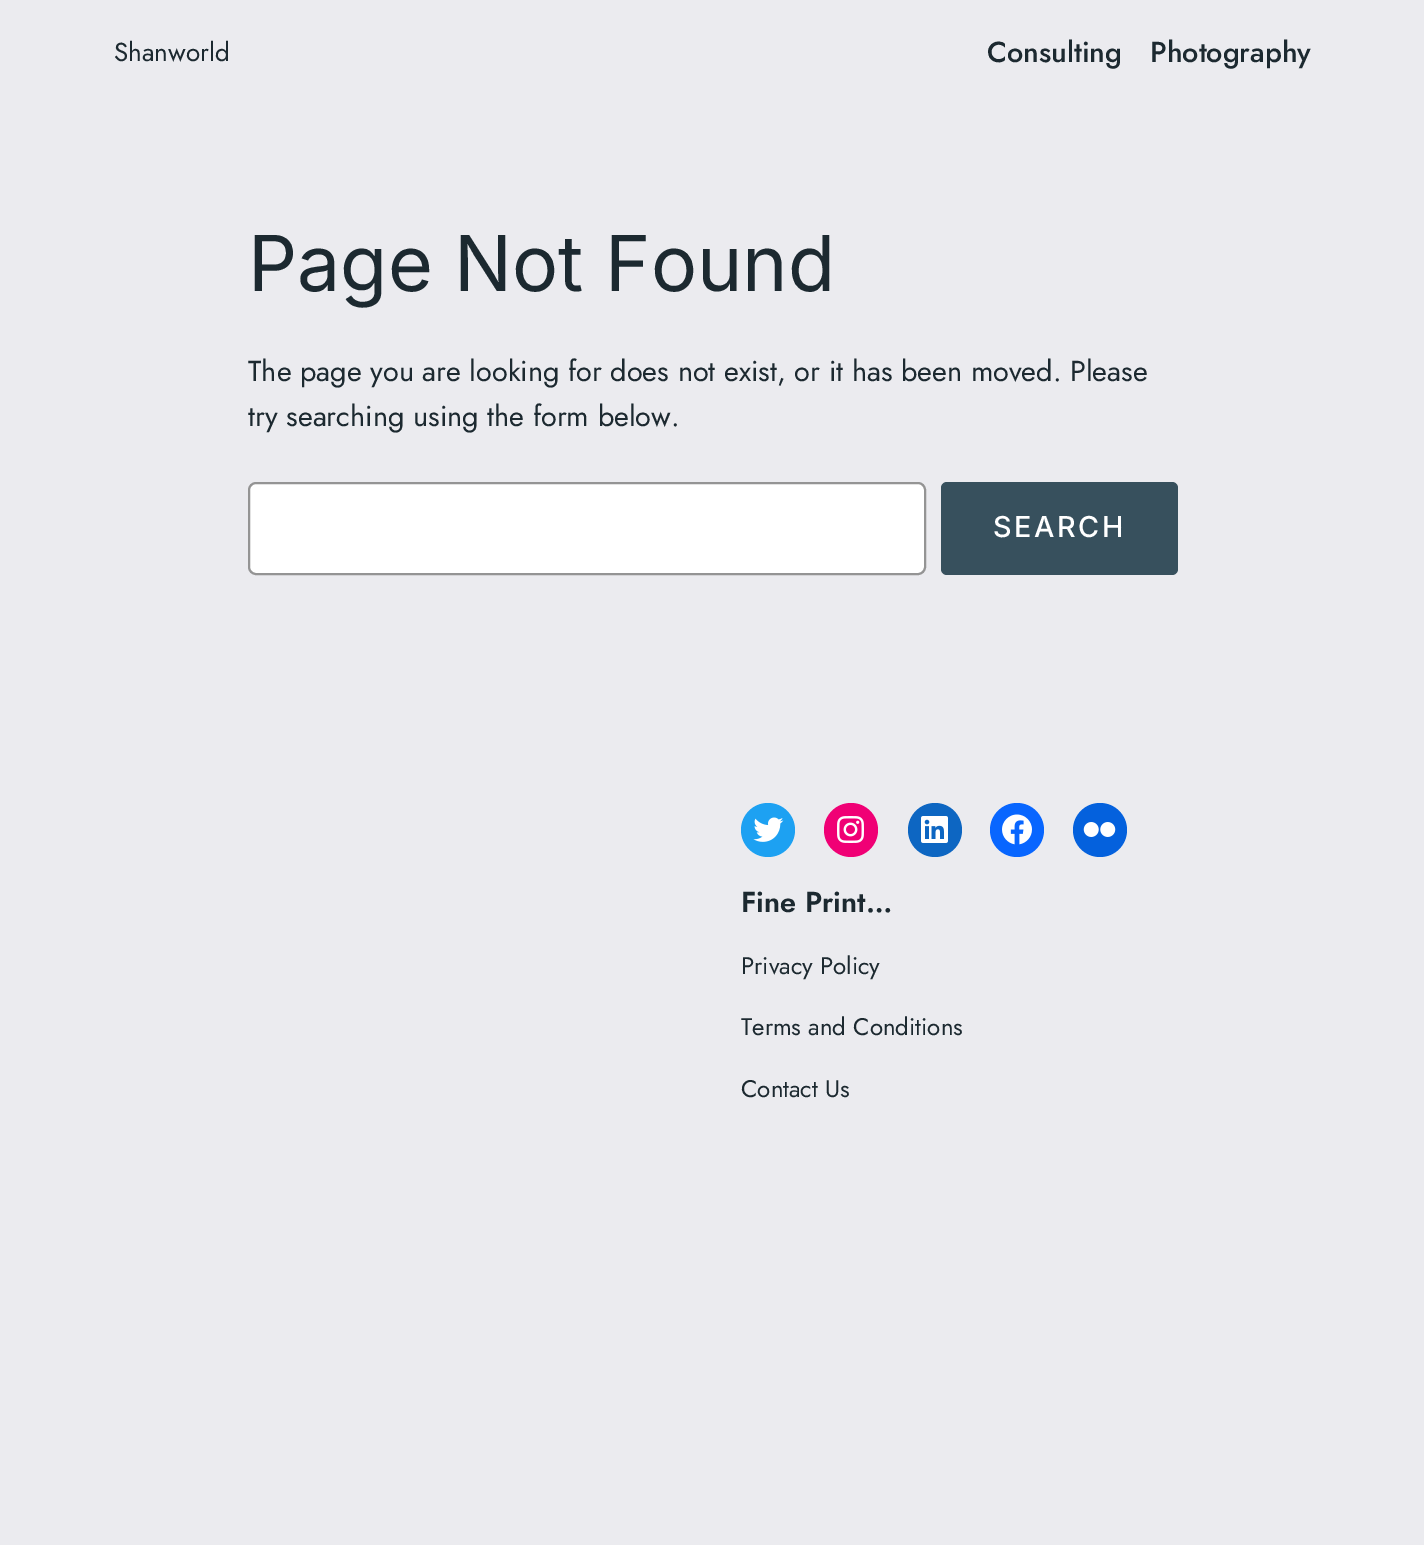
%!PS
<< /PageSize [1424 1545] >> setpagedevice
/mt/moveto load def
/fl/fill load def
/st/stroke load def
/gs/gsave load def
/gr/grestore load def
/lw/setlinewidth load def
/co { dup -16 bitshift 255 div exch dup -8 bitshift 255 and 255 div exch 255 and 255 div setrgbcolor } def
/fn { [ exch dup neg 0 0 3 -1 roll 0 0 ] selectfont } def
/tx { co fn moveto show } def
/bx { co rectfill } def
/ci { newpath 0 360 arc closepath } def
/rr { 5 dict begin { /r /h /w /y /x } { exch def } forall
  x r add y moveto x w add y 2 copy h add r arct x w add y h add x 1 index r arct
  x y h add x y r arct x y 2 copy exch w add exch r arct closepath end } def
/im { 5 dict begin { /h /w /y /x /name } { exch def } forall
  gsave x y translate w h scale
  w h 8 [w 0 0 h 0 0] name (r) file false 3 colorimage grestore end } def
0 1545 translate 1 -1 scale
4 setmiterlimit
0 0 1424 1545 16#EBEBEF bx
16#FFFFFF co
249 483 676 91 7 rr gs fl gr
16#949494 co
2 lw
st
16#37505D co
941 482 237 93 6 rr fl
16#1DA1F2 co
768 830 27 ci fl
(media/1.raw) 753 817 31 25 im
16#F00075 co
851 830 27 ci fl
(media/2.raw) 837 816 27 27 im
16#0D66C2 co
935 830 27 ci fl
(media/3.raw) 921 816 27 27 im
16#0866FF co
1017 830 27 ci fl
(media/4.raw) 1002 814 30 31 im
16#0461DD co
1100 830 27 ci fl
(media/5.raw) 1083 822 33 15 im
(Shanworld) 114 61 /Jost-Regular 26 16#1C2930 tx
(Consulting) 987 62 /Jost-Medium 28.8 16#1C2930 tx
(Photography) 1150 62 /Jost-Medium 28.8 16#1C2930 tx
(Page Not Found) 248 291 /Inter-Regular 77 16#1C2930 tx
(The page you are looking for does not exist, or it has been moved. Please) 248 381 /Jost-Regular 28.8 16#1C2930 tx
(try searching using the form below.) 248 426 /Jost-Regular 28.8 16#1C2930 tx
/Inter-Medium 28.8 fn
16#FFFFFF co
993 537 mt 2.5 0 (SEARCH) ashow
(Fine Print…) 741 912 /Jost-SemiBold 28.8 16#1C2930 tx
(Privacy Policy) 741 974 /Jost-Regular 24 16#1C2930 tx
(Terms and Conditions) 741 1035 /Jost-Regular 24 16#1C2930 tx
(Contact Us) 741 1097 /Jost-Regular 24 16#1C2930 tx
showpage
